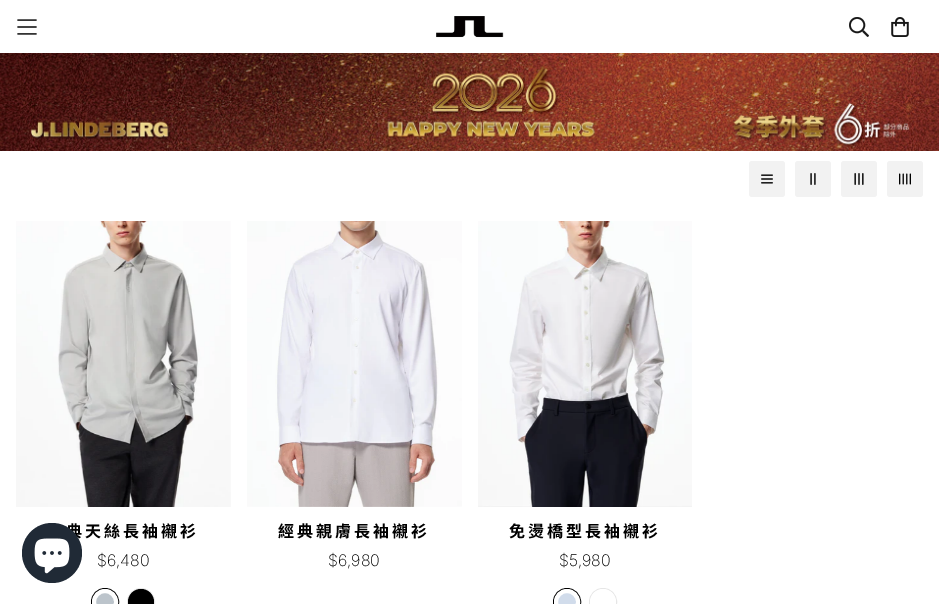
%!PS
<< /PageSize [939 604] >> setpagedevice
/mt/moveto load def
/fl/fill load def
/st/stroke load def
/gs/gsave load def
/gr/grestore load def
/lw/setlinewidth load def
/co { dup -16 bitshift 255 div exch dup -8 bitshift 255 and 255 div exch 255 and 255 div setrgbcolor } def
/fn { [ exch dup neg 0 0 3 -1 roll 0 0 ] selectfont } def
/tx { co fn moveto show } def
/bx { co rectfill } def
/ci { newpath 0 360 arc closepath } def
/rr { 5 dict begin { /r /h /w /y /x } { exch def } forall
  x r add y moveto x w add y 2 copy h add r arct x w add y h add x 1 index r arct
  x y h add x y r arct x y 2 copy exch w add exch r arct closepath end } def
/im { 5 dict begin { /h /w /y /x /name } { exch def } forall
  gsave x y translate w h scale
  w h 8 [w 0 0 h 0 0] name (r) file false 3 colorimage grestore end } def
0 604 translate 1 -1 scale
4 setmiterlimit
0 0 939 604 16#FFFFFF bx
(media/1.raw) 17 19 20 16 im
(media/2.raw) 436 16 68 22 im
(media/3.raw) 849 17 20 20 im
(media/4.raw) 891 17 18 20 im
(media/6.raw) 0 53 939 98 im
16#F2F2F2 co
749 161 36 36 3 rr fl
(media/7.raw) 761 174 12 10 im
795 161 36 36 3 rr fl
(media/8.raw) 810 173 6 12 im
841 161 36 36 3 rr fl
(media/9.raw) 854 173 10 12 im
887 161 36 36 3 rr fl
(media/10.raw) 899 173 12 12 im
(media/11.raw) 16 221 215 286 im
16#000000 co
105 602 13.5 ci st
16#BCC4CB co
105 602 11 ci gs fl gr
16#FFFFFF co
4 lw
st
16#E6E6E6 co
1 lw
141 602 13.5 ci st
16#000000 co
141 602 13 ci fl
(media/12.raw) 247 221 215 286 im
(media/13.raw) 478 221 214 286 im
567 602 13.5 ci st
16#D1DCEB co
567 602 11 ci gs fl gr
16#FFFFFF co
4 lw
st
16#E6E6E6 co
1 lw
603 602 13.5 ci st
16#FFFFFF co
603 602 13 ci fl
/NotoSansTC-Bold 16 fn
16#000000 co
66 537 mt 3 0 (典天絲長袖襯衫) ashow
16#202A36 co
52 553 30 ci fl
(media/5.raw) 34 538 36 36 im
($6,480) 97 566 /Inter-ExtraLight 16 16#000000 tx
/NotoSansTC-Bold 16 fn
278 537 mt 3 0 (經典親膚長袖襯衫) ashow
($6,980) 328 566 /Inter-ExtraLight 16 16#000000 tx
/NotoSansTC-Bold 16 fn
509 537 mt 3 0 (免燙橋型長袖襯衫) ashow
($5,980) 559 566 /Inter-ExtraLight 16 16#000000 tx
showpage
